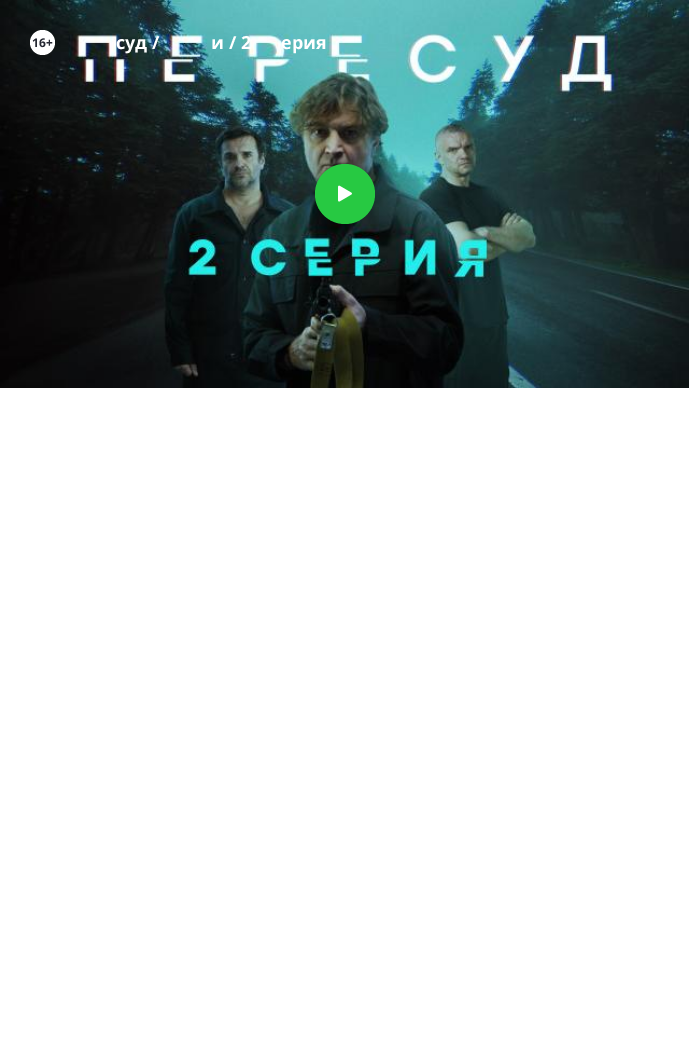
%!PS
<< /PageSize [689 1050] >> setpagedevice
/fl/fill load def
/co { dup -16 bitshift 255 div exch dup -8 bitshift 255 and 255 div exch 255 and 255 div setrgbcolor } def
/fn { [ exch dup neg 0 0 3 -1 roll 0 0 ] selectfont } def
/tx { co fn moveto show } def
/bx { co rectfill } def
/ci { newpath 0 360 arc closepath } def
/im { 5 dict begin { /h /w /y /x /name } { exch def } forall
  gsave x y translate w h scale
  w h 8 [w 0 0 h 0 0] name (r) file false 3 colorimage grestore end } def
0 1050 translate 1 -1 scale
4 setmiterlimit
0 0 689 1050 16#FFFFFF bx
(media/1.raw) 0 0 689 388 im
42.5 42.5 12.5 ci fl
16#27C942 co
345 194 30 ci fl
(media/2.raw) 338 185 14 17 im
(16+) 32 47 /OpenSans-Bold 12 16#252832 tx
(суд /) 116 49 /OpenSans-Bold 18 16#FFFFFF tx
(и / 2) 211 49 /OpenSans-Bold 18 16#FFFFFF tx
(ерия) 281 49 /OpenSans-Bold 18 16#FFFFFF tx
showpage
